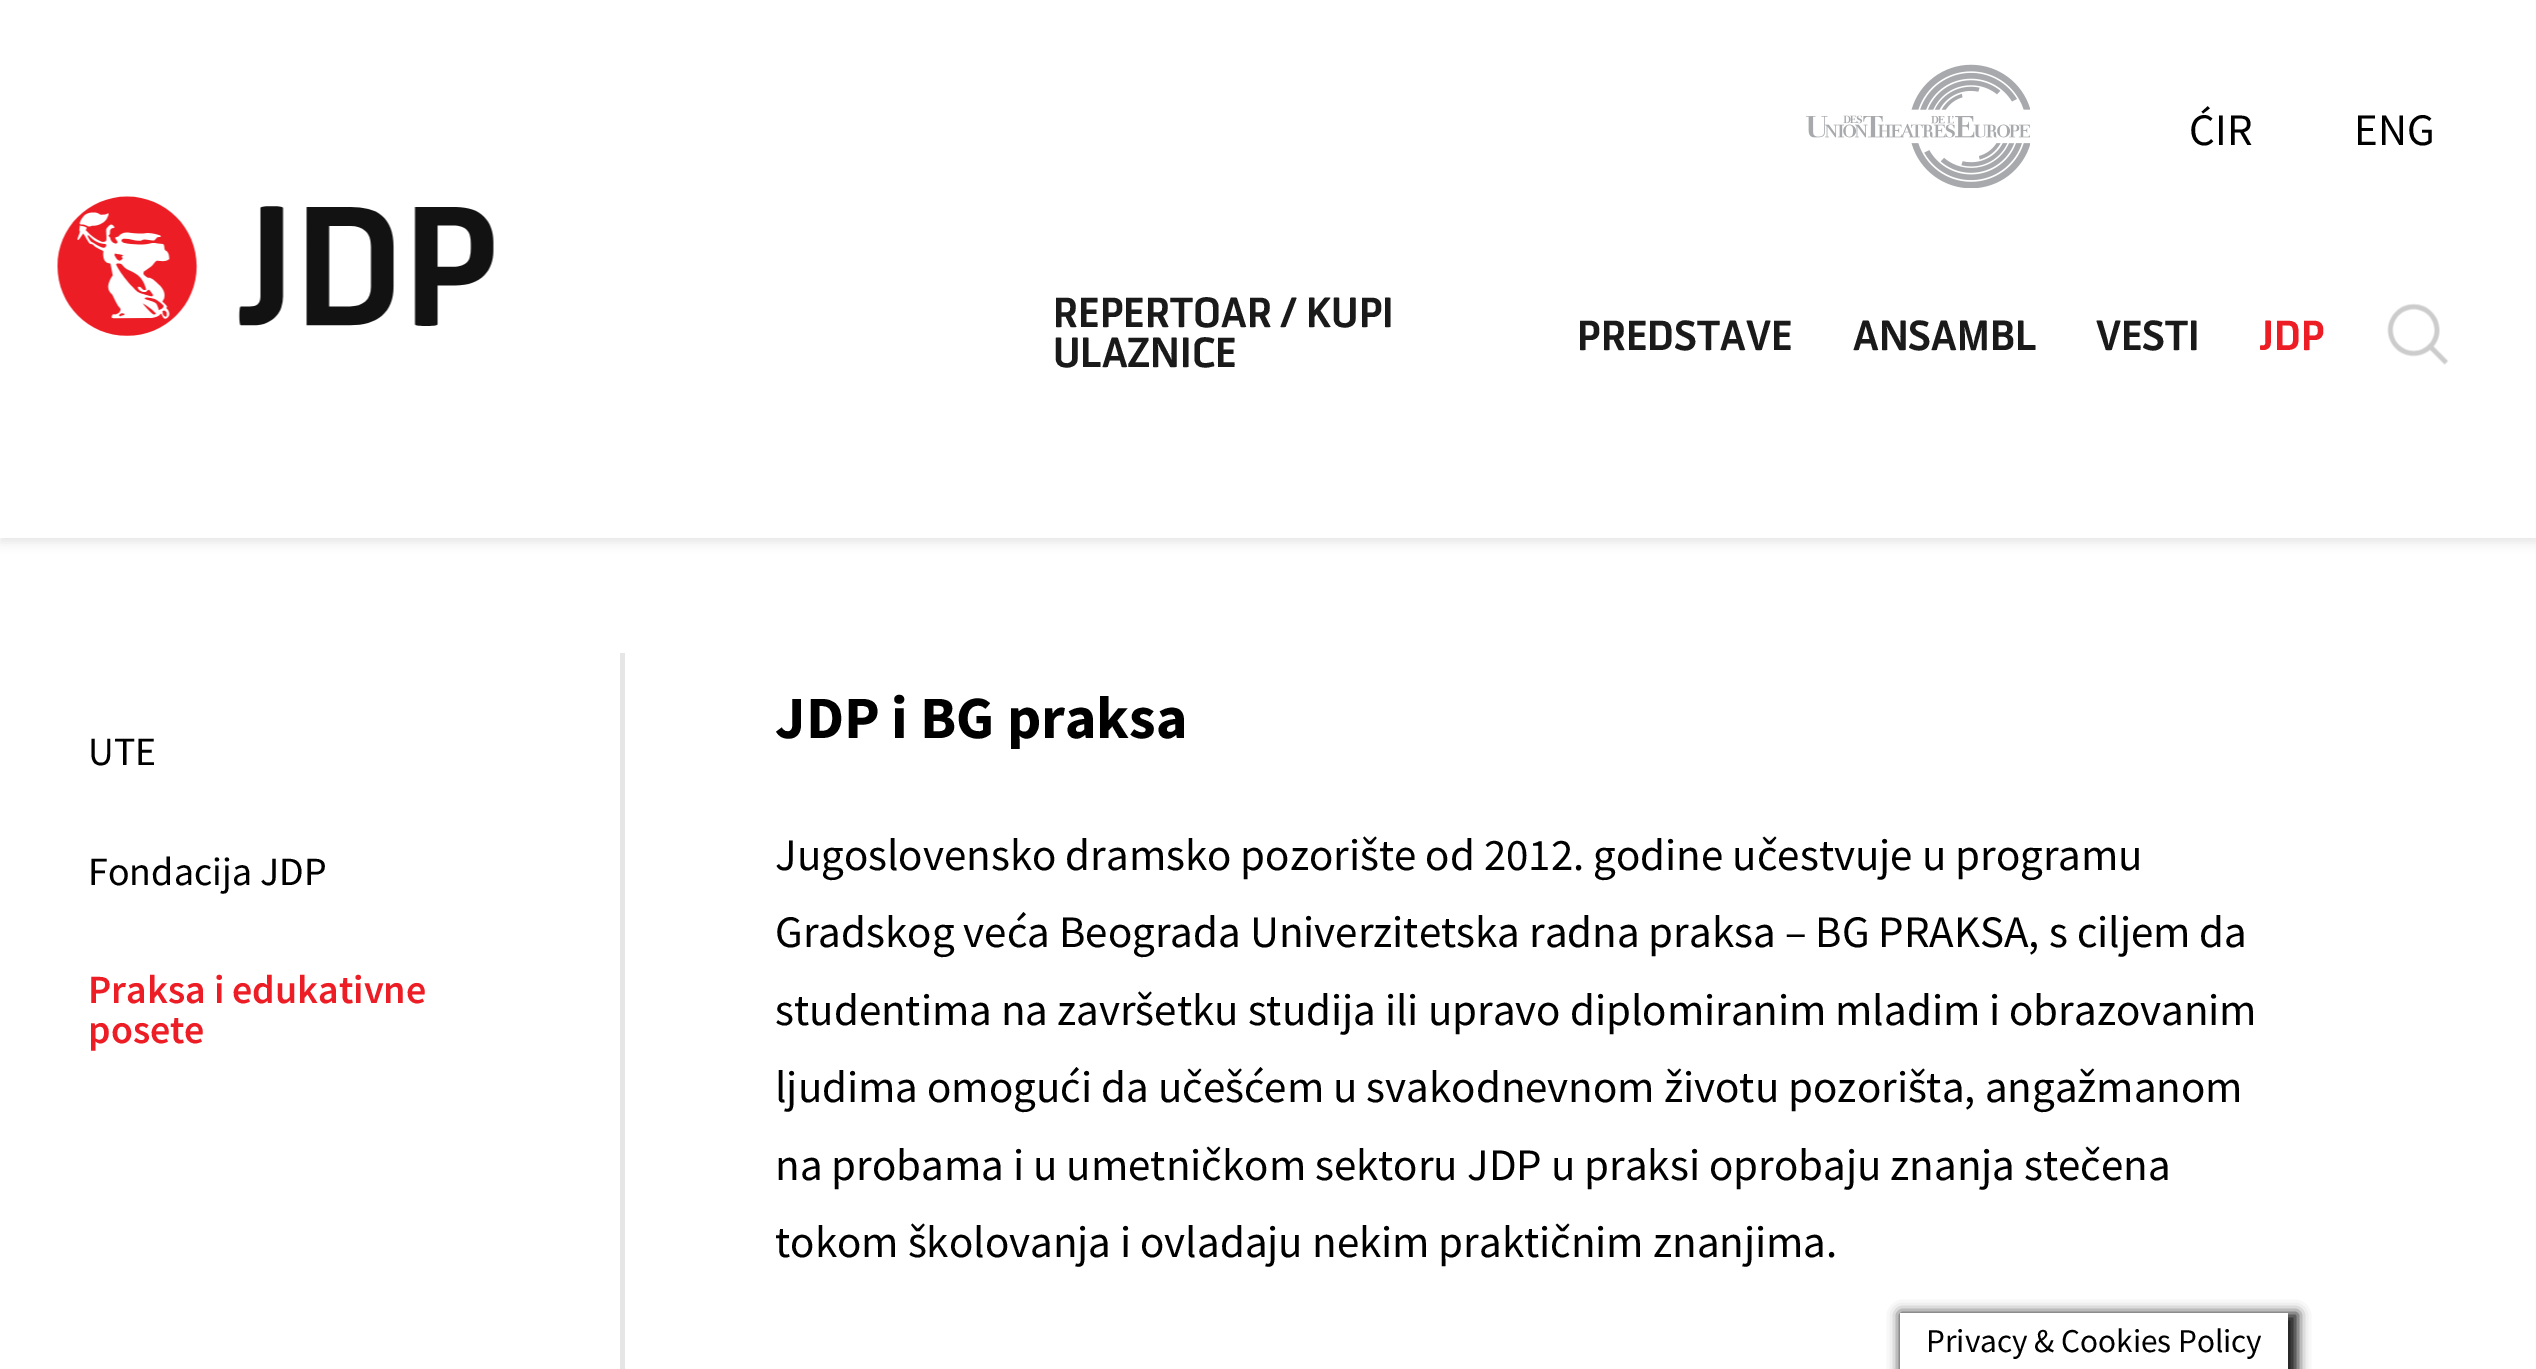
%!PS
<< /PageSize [2536 1369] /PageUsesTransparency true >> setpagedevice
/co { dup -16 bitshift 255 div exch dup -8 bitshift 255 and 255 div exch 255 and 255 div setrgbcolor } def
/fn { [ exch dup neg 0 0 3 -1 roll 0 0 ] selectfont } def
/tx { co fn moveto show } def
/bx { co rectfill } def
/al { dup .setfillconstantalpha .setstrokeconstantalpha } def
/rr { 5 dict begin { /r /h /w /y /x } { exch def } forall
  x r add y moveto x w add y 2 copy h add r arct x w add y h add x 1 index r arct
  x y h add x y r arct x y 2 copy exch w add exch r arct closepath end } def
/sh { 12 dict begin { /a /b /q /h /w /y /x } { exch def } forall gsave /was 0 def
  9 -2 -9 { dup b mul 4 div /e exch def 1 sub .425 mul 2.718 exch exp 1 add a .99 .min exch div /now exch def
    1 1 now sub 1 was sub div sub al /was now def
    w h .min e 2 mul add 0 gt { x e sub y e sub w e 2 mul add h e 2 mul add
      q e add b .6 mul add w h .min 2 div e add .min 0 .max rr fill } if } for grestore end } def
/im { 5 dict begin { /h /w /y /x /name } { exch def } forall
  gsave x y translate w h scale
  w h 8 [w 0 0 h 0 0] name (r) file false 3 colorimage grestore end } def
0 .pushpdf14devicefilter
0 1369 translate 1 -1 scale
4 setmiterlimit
0 0 2536 1369 16#FFFFFF bx
16#000000 co
0 5 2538 538 0 5 .09 sh
0 0 2536 538 16#FFFFFF bx
(media/1.raw) 1805 64 225 124 im
(media/2.raw) 57 196 437 140 im
(media/3.raw) 2387 303 62 62 im
620 653 5 716 16#E6E6E6 bx
16#161616 co
1900 1313 398 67 0 6 1 sh
1900 1313 388 56 16#FFFFFF bx
(ĆIR) 2189 145 /SourceSansPro-Regular 45 16#000000 tx
(ENG) 2354 145 /SourceSansPro-Regular 45 16#000000 tx
(REPERTOAR / KUPI) 1053 327 /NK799-Bold 40 16#1A1A1A tx
(ULAZNICE) 1053 367 /NK799-Bold 40 16#1A1A1A tx
(PREDSTAVE) 1577 350 /NK799-Bold 40 16#1A1A1A tx
(ANSAMBL) 1853 350 /NK799-Bold 40 16#1A1A1A tx
(VESTI) 2096 350 /NK799-Bold 40 16#1A1A1A tx
(JDP) 2259 350 /NK799-Bold 40 16#EC1D24 tx
(UTE) 88 765 /SourceSansPro-Regular 40 16#000000 tx
(Fondacija JDP) 88 885 /SourceSansPro-Regular 40 16#000000 tx
(Praksa i edukativne) 88 1003 /SourceSansPro-SemiBold 40 16#EC1D24 tx
(posete) 88 1043 /SourceSansPro-SemiBold 40 16#EC1D24 tx
(JDP i BG praksa) 775 738 /SourceSansPro-Bold 60 16#000000 tx
(Jugoslovensko dramsko pozorište od 2012. godine učestvuje u programu) 775 870 /SourceSansPro-Regular 45 16#000000 tx
(Gradskog veća Beograda Univerzitetska radna praksa – BG PRAKSA, s ciljem da) 775 947 /SourceSansPro-Regular 45 16#000000 tx
(studentima na završetku studija ili upravo diplomiranim mladim i obrazovanim) 775 1025 /SourceSansPro-Regular 45 16#000000 tx
(ljudima omogući da učešćem u svakodnevnom životu pozorišta, angažmanom) 775 1102 /SourceSansPro-Regular 45 16#000000 tx
(na probama i u umetničkom sektoru JDP u praksi oprobaju znanja stečena) 775 1180 /SourceSansPro-Regular 45 16#000000 tx
(tokom školovanja i ovladaju nekim praktičnim znanjima.) 775 1257 /SourceSansPro-Regular 45 16#000000 tx
(Privacy & Cookies Policy) 1926 1352 /SourceSansPro-Regular 33.25 16#000000 tx
.poppdf14devicefilter showpage
